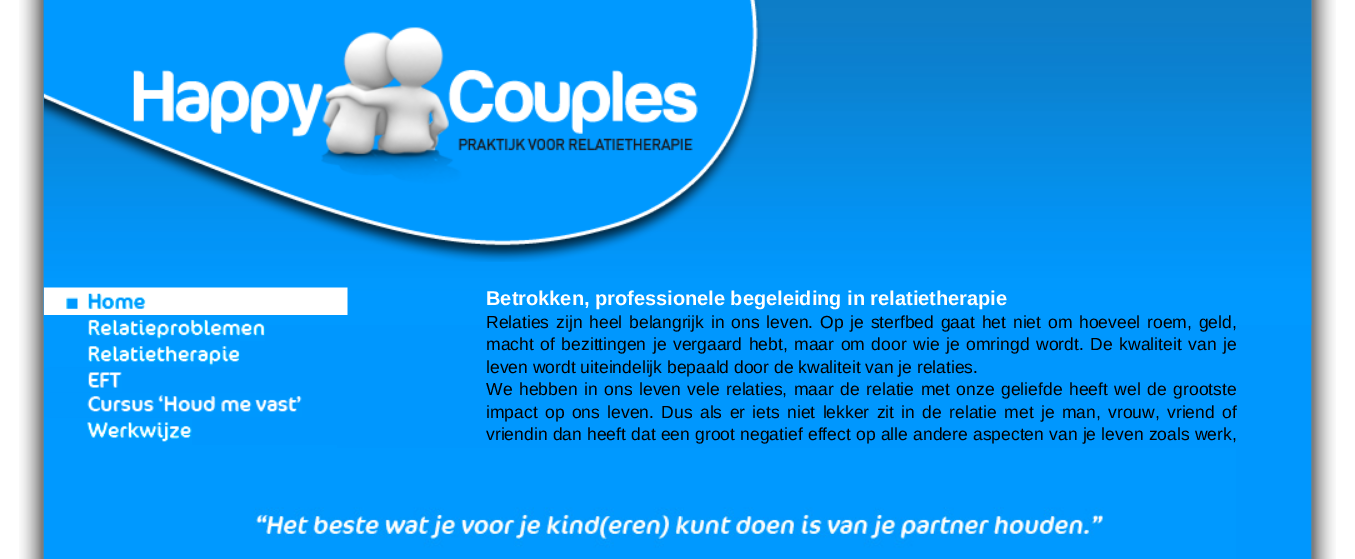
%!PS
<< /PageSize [1355 559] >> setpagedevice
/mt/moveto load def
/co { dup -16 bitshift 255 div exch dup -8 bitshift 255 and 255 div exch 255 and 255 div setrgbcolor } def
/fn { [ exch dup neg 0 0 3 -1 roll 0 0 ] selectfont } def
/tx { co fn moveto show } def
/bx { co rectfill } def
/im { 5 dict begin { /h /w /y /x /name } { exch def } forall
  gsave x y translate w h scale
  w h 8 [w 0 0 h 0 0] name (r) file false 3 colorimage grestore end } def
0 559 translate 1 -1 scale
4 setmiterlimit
0 0 1355 559 16#FFFFFF bx
(media/1.raw) 19 0 1317 559 im
44 325 3 234 16#0099FF bx
(media/2.raw) 43 0 1269 325 im
(media/3.raw) 43 0 720 262 im
(media/4.raw) 43 287 305 28 im
(media/5.raw) 43 315 222 26 im
(media/6.raw) 43 341 197 26 im
(media/7.raw) 43 368 79 24 im
(media/8.raw) 43 393 259 24 im
(media/9.raw) 43 418 149 27 im
(media/10.raw) 43 445 294 25 im
(media/11.raw) 43 470 44 26 im
(media/12.raw) 43 496 44 28 im
(media/13.raw) 43 524 44 25 im
(media/14.raw) 43 549 44 10 im
(media/15.raw) 87 448 1149 111 im
(Betrokken, professionele begeleiding in relatietherapie) 486 305 /LiberationSans-Bold 20 16#FFFFFF tx
/LiberationSans-Regular 17.5 fn
16#000000 co
486 328 mt 2 0 32 (Relaties zijn heel belangrijk in ons leven. Op je sterfbed gaat het niet om hoeveel roem, geld,) widthshow
486 350 mt 1.75 0 32 (macht of bezittingen je vergaard hebt, maar om door wie je omringd wordt. De kwaliteit van je) widthshow
(leven wordt uiteindelijk bepaald door de kwaliteit van je relaties.) 486 373 /LiberationSans-Regular 17.5 16#000000 tx
486 395 mt 1.75 0 32 (We hebben in ons leven vele relaties, maar de relatie met onze geliefde heeft wel de grootste) widthshow
486 418 mt 2.5 0 32 (impact op ons leven. Dus als er iets niet lekker zit in de relatie met je man, vrouw, vriend of) widthshow
486 440 mt .4 0 32 (vriendin dan heeft dat een groot negatief effect op alle andere aspecten van je leven zoals werk,) widthshow
showpage
